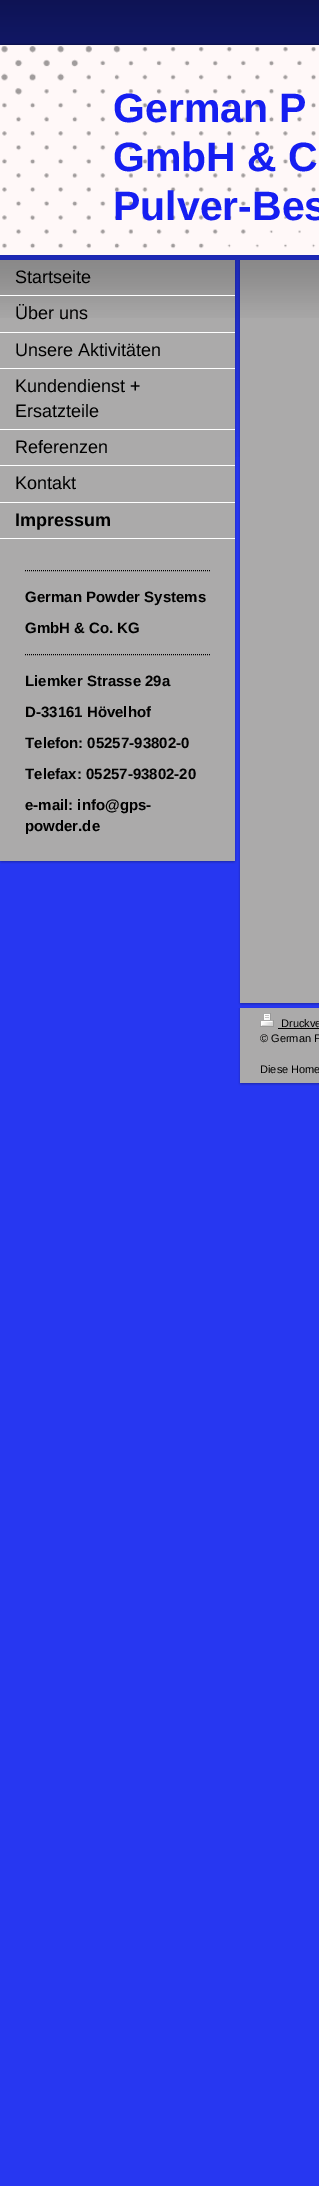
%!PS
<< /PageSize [319 2186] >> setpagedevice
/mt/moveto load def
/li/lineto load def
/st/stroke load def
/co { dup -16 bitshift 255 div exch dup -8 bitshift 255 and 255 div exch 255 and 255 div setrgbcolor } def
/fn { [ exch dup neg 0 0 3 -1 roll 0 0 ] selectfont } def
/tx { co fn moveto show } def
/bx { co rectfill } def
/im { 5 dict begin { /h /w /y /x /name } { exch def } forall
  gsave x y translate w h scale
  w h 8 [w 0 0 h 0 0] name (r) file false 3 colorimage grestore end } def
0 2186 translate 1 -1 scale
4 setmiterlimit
0 0 319 2186 16#2737F1 bx
(media/1.raw) 0 0 319 452 im
(media/2.raw) 0 43 319 213 im
0 45 319 210 16#FFF8F8 bx
(media/3.raw) 1 46 315 203 im
0 259 235 1 16#1D28B1 bx
(media/4.raw) 0 861 237 3 im
(media/5.raw) 235 260 2 601 im
0 260 235 601 16#ABAAAA bx
(media/6.raw) 0 260 235 58 im
0 295 235 1 16#FFFFFF bx
0 332 235 1 16#FFFFFF bx
0 368 235 1 16#FFFFFF bx
0 429 235 1 16#FFFFFF bx
0 465 235 1 16#FFFFFF bx
0 502 235 1 16#FFFFFF bx
0 538 235 1 16#FFFFFF bx
16#000000 co
[1 1] 0 setdash
25 570.5 mt 210 570.5 li st
25 654.5 mt 210 654.5 li st
240 259 79 1 16#1D28B1 bx
(media/7.raw) 238 1003 81 3 im
(media/8.raw) 238 260 2 743 im
240 260 79 743 16#ABAAAA bx
(media/9.raw) 240 260 79 58 im
240 1007 79 1 16#2635EA bx
(media/7.raw) 238 1083 81 3 im
(media/10.raw) 238 1008 2 75 im
240 1008 79 75 16#ABAAAA bx
(media/11.raw) 260 1013 14 14 im
278 1028 41 1 16#000000 bx
(German P) 113 122 /LiberationSans-Bold 41 16#151EF1 tx
(GmbH & C) 113 171 /LiberationSans-Bold 41 16#151EF1 tx
(Pulver-Bes) 113 220 /LiberationSans-Bold 41 16#151EF1 tx
(Startseite) 15 283 /LiberationSans-Regular 18 16#000000 tx
(Über uns) 15 319 /LiberationSans-Regular 18 16#000000 tx
(Unsere Aktivitäten) 15 356 /LiberationSans-Regular 18 16#000000 tx
(Kundendienst +) 15 392 /LiberationSans-Regular 18 16#000000 tx
(Ersatzteile) 15 417 /LiberationSans-Regular 18 16#000000 tx
(Referenzen) 15 453 /LiberationSans-Regular 18 16#000000 tx
(Kontakt) 15 489 /LiberationSans-Regular 18 16#000000 tx
(Impressum) 15 526 /LiberationSans-Bold 18 16#000000 tx
(German Powder Systems) 25 602 /LiberationSans-Bold 15 16#000000 tx
(GmbH & Co. KG) 25 633 /LiberationSans-Bold 15 16#000000 tx
(Liemker Strasse 29a) 25 686 /LiberationSans-Bold 15 16#000000 tx
(D-33161 Hövelhof) 25 717 /LiberationSans-Bold 15 16#000000 tx
(Telefon: 05257-93802-0) 25 748 /LiberationSans-Bold 15 16#000000 tx
(Telefax: 05257-93802-20) 25 779 /LiberationSans-Bold 15 16#000000 tx
(e-mail: info@gps-) 25 810 /LiberationSans-Bold 15 16#000000 tx
(powder.de) 25 831 /LiberationSans-Bold 15 16#000000 tx
(Druckve) 281 1027 /LiberationSans-Regular 11 16#000000 tx
(© German P) 260 1042 /LiberationSans-Regular 11 16#000000 tx
(Diese Home) 260 1073 /LiberationSans-Regular 11 16#000000 tx
showpage
